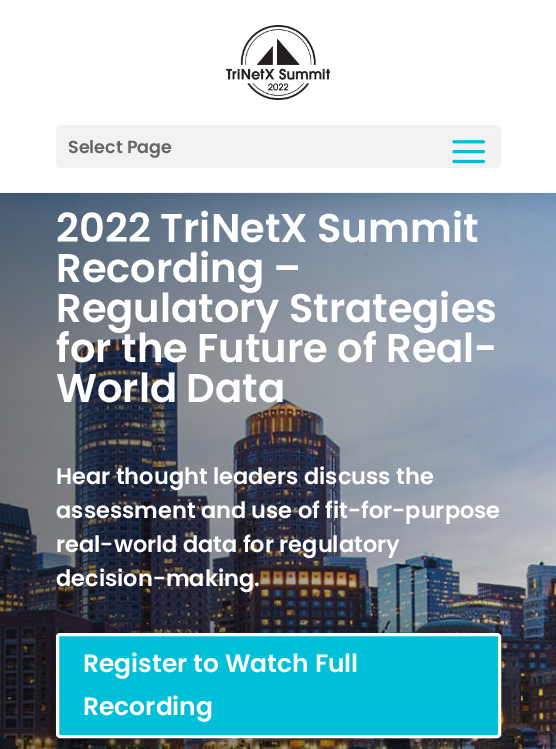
%!PS
<< /PageSize [556 749] /PageUsesTransparency true >> setpagedevice
/fl/fill load def
/st/stroke load def
/gs/gsave load def
/gr/grestore load def
/lw/setlinewidth load def
/co { dup -16 bitshift 255 div exch dup -8 bitshift 255 and 255 div exch 255 and 255 div setrgbcolor } def
/fn { [ exch dup neg 0 0 3 -1 roll 0 0 ] selectfont } def
/tx { co fn moveto show } def
/bx { co rectfill } def
/al { dup .setfillconstantalpha .setstrokeconstantalpha } def
/rr { 5 dict begin { /r /h /w /y /x } { exch def } forall
  x r add y moveto x w add y 2 copy h add r arct x w add y h add x 1 index r arct
  x y h add x y r arct x y 2 copy exch w add exch r arct closepath end } def
/sh { 12 dict begin { /a /b /q /h /w /y /x } { exch def } forall gsave /was 0 def
  9 -2 -9 { dup b mul 4 div /e exch def 1 sub .425 mul 2.718 exch exp 1 add a .99 .min exch div /now exch def
    1 1 now sub 1 was sub div sub al /was now def
    w h .min e 2 mul add 0 gt { x e sub y e sub w e 2 mul add h e 2 mul add
      q e add b .6 mul add w h .min 2 div e add .min 0 .max rr fill } if } for grestore end } def
/im { 5 dict begin { /h /w /y /x /name } { exch def } forall
  gsave x y translate w h scale
  w h 8 [w 0 0 h 0 0] name (r) file false 3 colorimage grestore end } def
0 .pushpdf14devicefilter
0 749 translate 1 -1 scale
4 setmiterlimit
0 0 556 749 16#FFFFFF bx
(media/1.raw) 226 25 104 75 im
16#F2F2F2 co
56 125 445 43 6 rr fl
(media/2.raw) 452 140 34 24 im
(media/4.raw) 0 193 556 556 im
16#000000 co
56 635 445 105 4 11 .3 sh
16#00BFD8 co
57.5 634.5 442 102 2.5 rr gs fl gr
16#FFFFFF co
3 lw
st
(Select Page) 68 153 /Poppins-SemiBold 17.5 16#666666 tx
(2022 TriNetX Summit) 56 242 /Poppins-SemiBold 40 16#FFFFFF tx
(media/3.raw) 0 192 556 19 im
(Recording –) 56 282 /Poppins-SemiBold 40 16#FFFFFF tx
(Regulatory Strategies) 56 322 /Poppins-SemiBold 40 16#FFFFFF tx
(for the Future of Real-) 56 362 /Poppins-SemiBold 40 16#FFFFFF tx
(World Data) 56 402 /Poppins-SemiBold 40 16#FFFFFF tx
(Hear thought leaders discuss the) 56 484 /Poppins-SemiBold 22.5 16#FFFFFF tx
(assessment and use of fit-for-purpose) 56 518 /Poppins-SemiBold 22.5 16#FFFFFF tx
(real-world data for regulatory) 56 552 /Poppins-SemiBold 22.5 16#FFFFFF tx
(decision-making.) 56 586 /Poppins-SemiBold 22.5 16#FFFFFF tx
(Register to Watch Full) 83 672 /Poppins-SemiBold 25 16#FFFFFF tx
(Recording) 83 715 /Poppins-SemiBold 25 16#FFFFFF tx
.poppdf14devicefilter showpage
